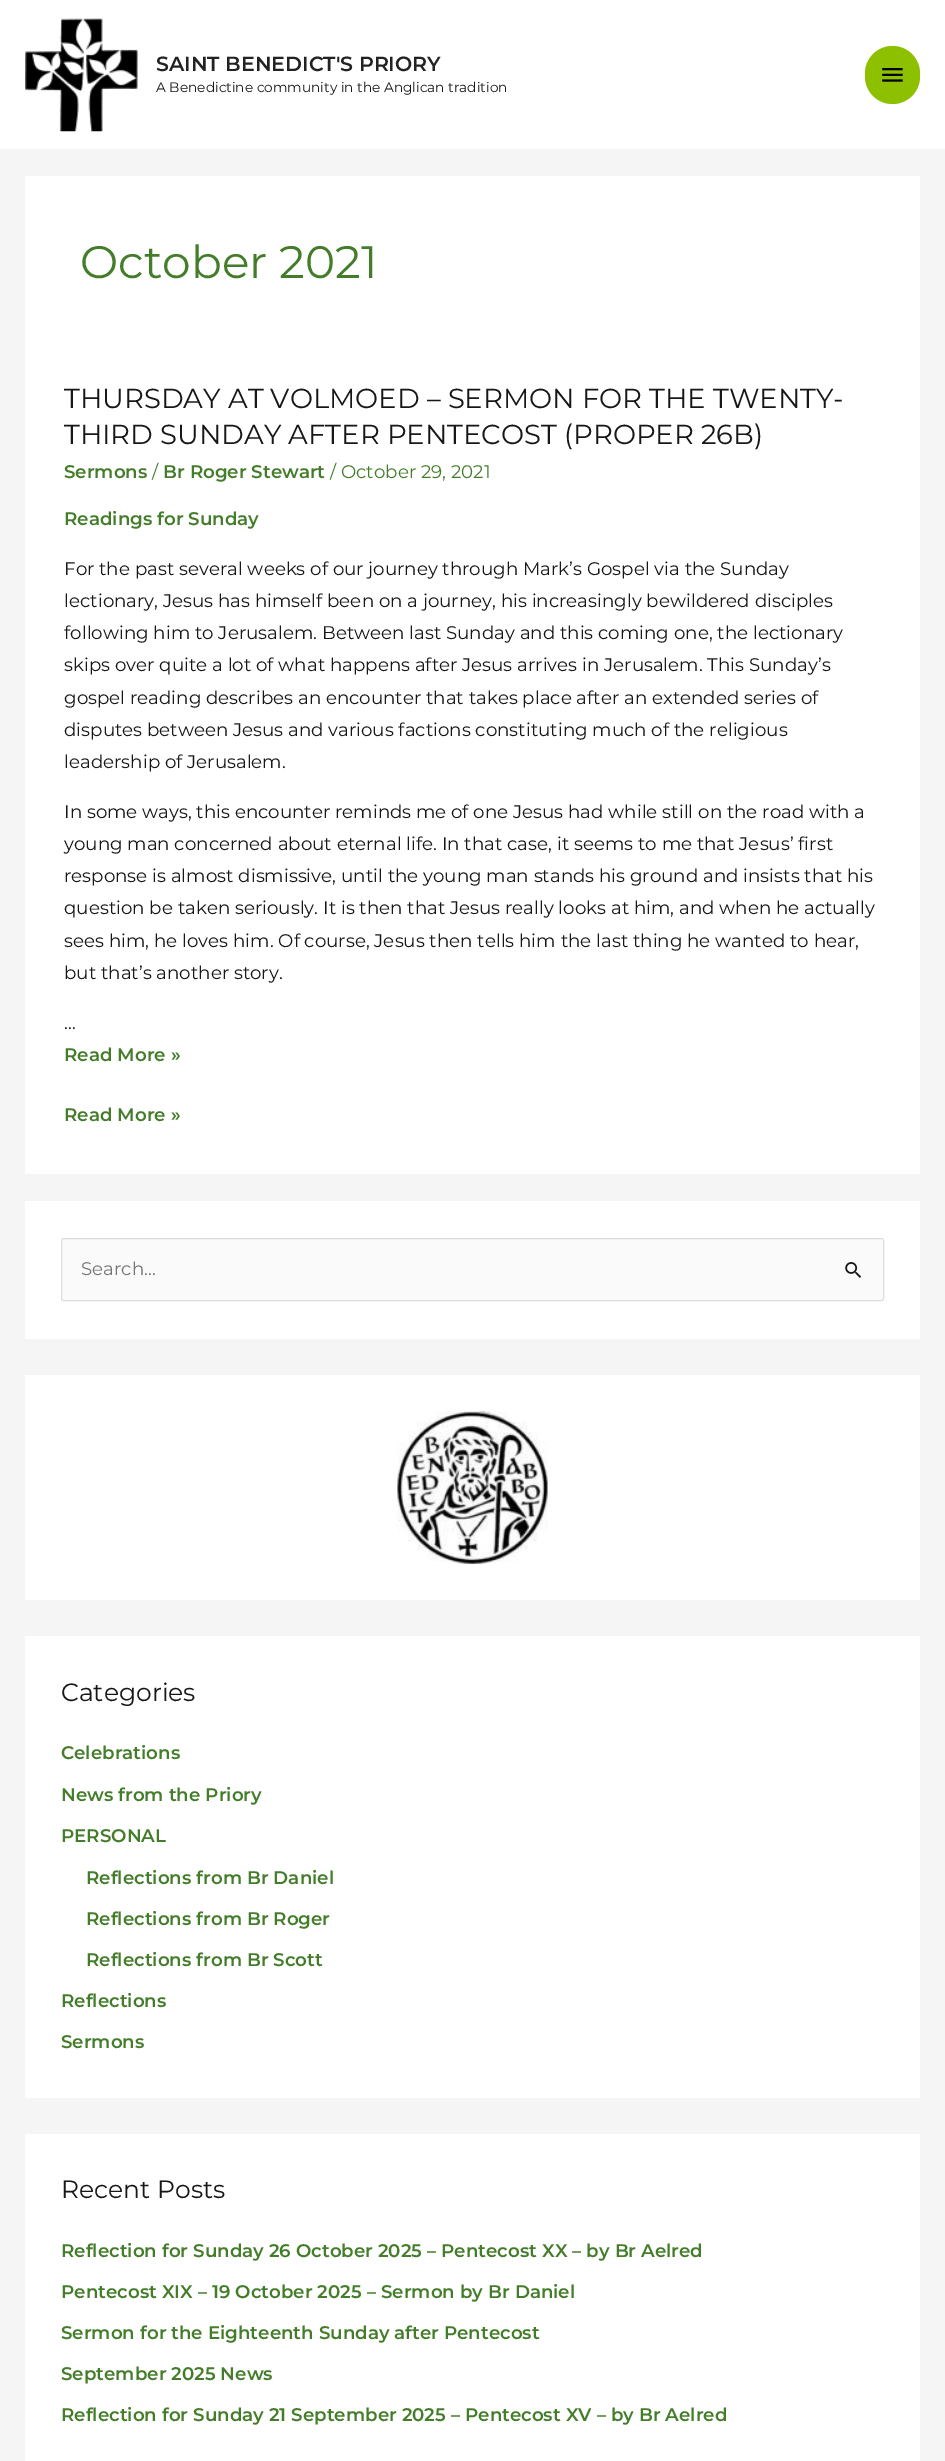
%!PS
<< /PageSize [945 2461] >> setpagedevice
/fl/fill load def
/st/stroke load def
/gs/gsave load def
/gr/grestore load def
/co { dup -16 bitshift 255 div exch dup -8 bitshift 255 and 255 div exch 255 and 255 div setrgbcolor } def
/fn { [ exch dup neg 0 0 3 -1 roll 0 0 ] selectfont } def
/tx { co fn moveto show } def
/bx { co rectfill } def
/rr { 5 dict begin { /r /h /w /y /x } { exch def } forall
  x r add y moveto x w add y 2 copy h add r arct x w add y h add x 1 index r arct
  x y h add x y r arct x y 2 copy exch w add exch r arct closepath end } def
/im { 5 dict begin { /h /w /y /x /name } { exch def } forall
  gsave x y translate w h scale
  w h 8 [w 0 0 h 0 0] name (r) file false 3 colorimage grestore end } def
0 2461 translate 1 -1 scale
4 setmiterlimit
0 0 945 2461 16#F5F5F5 bx
0 0 945 149 16#FFFFFF bx
(media/1.raw) 25 18 113 114 im
16#8DC100 co
865 46 55 58 27.5 rr fl
(media/2.raw) 882 68 21 14 im
25 176 895 998 16#FFFFFF bx
25 1201 895 138 16#FFFFFF bx
16#FAFAFA co
61.5 1238.5 822 62 2 rr gs fl gr
16#DDDDDD co
st
(media/3.raw) 845 1262 17 16 im
25 1375 895 225 16#FFFFFF bx
(media/4.raw) 397 1411 151 153 im
25 1636 895 462 16#FFFFFF bx
25 2134 895 327 16#FFFFFF bx
(SAINT BENEDICT'S PRIORY) 156 71 /Montserrat-SemiBold 20.5 16#222222 tx
(A Benedictine community in the Anglican tradition) 156 92 /Montserrat-Regular 13.7 16#171717 tx
(October 2021) 80 278 /Montserrat-Regular 45.5 16#447D2A tx
(THURSDAY AT VOLMOED – SERMON FOR THE TWENTY-) 64 408 /Montserrat-Regular 27.5 16#171717 tx
(THIRD SUNDAY AFTER PENTECOST \(PROPER 26B\)) 64 444 /Montserrat-Regular 27.5 16#171717 tx
(Sermons) 64 478 /Montserrat-SemiBold 18.25 16#447D2A tx
(/) 152 478 /Montserrat-Regular 18.25 16#447D2A tx
(Br Roger Stewart) 163 478 /Montserrat-SemiBold 18.25 16#447D2A tx
(/ October 29, 2021) 330 478 /Montserrat-Regular 18.25 16#447D2A tx
(Readings for Sunday) 64 525 /Montserrat-SemiBold 18.25 16#447D2A tx
(For the past several weeks of our journey through Mark’s Gospel via the Sunday) 64 575 /Montserrat-Regular 18.25 16#171717 tx
(lectionary, Jesus has himself been on a journey, his increasingly bewildered disciples) 64 607 /Montserrat-Regular 18.25 16#171717 tx
(following him to Jerusalem. Between last Sunday and this coming one, the lectionary) 64 639 /Montserrat-Regular 18.25 16#171717 tx
(skips over quite a lot of what happens after Jesus arrives in Jerusalem. This Sunday’s) 64 671 /Montserrat-Regular 18.25 16#171717 tx
(gospel reading describes an encounter that takes place after an extended series of) 64 704 /Montserrat-Regular 18.25 16#171717 tx
(disputes between Jesus and various factions constituting much of the religious) 64 736 /Montserrat-Regular 18.25 16#171717 tx
(leadership of Jerusalem.) 64 768 /Montserrat-Regular 18.25 16#171717 tx
(In some ways, this encounter reminds me of one Jesus had while still on the road with a) 64 818 /Montserrat-Regular 18.25 16#171717 tx
(young man concerned about eternal life. In that case, it seems to me that Jesus’ first) 64 850 /Montserrat-Regular 18.25 16#171717 tx
(response is almost dismissive, until the young man stands his ground and insists that his) 64 882 /Montserrat-Regular 18.25 16#171717 tx
(question be taken seriously. It is then that Jesus really looks at him, and when he actually) 64 914 /Montserrat-Regular 18.25 16#171717 tx
(sees him, he loves him. Of course, Jesus then tells him the last thing he wanted to hear,) 64 947 /Montserrat-Regular 18.25 16#171717 tx
(but that’s another story.) 64 979 /Montserrat-Regular 18.25 16#171717 tx
(…) 64 1029 /Montserrat-Regular 18.25 16#171717 tx
(Read More ») 64 1061 /Montserrat-SemiBold 18.25 16#447D2A tx
(Read More ») 64 1121 /Montserrat-SemiBold 18.25 16#447D2A tx
(Search...) 81 1275 /Montserrat-Regular 18.25 16#757575 tx
(Categories) 61 1701 /Montserrat-Regular 25 16#171717 tx
(Celebrations) 61 1759 /Montserrat-SemiBold 18.25 16#447D2A tx
(News from the Priory) 61 1801 /Montserrat-SemiBold 18.25 16#447D2A tx
(PERSONAL) 61 1842 /Montserrat-SemiBold 18.25 16#447D2A tx
(Reflections from Br Daniel) 86 1884 /Montserrat-SemiBold 18.25 16#447D2A tx
(Reflections from Br Roger) 86 1925 /Montserrat-SemiBold 18.25 16#447D2A tx
(Reflections from Br Scott) 86 1966 /Montserrat-SemiBold 18.25 16#447D2A tx
(Reflections) 61 2007 /Montserrat-SemiBold 18.25 16#447D2A tx
(Sermons) 61 2048 /Montserrat-SemiBold 18.25 16#447D2A tx
(Recent Posts) 61 2198 /Montserrat-Regular 25 16#171717 tx
(Reflection for Sunday 26 October 2025 – Pentecost XX – by Br Aelred) 61 2257 /Montserrat-SemiBold 18.25 16#447D2A tx
(Pentecost XIX – 19 October 2025 – Sermon by Br Daniel) 61 2298 /Montserrat-SemiBold 18.25 16#447D2A tx
(Sermon for the Eighteenth Sunday after Pentecost) 61 2339 /Montserrat-SemiBold 18.25 16#447D2A tx
(September 2025 News) 61 2380 /Montserrat-SemiBold 18.25 16#447D2A tx
(Reflection for Sunday 21 September 2025 – Pentecost XV – by Br Aelred) 61 2421 /Montserrat-SemiBold 18.25 16#447D2A tx
showpage
